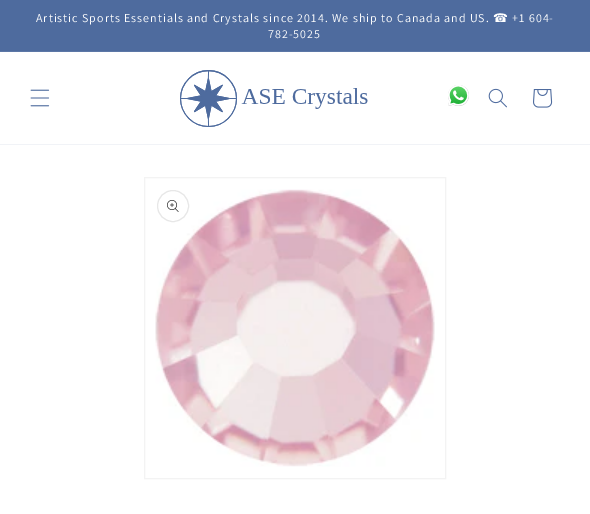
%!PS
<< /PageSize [590 514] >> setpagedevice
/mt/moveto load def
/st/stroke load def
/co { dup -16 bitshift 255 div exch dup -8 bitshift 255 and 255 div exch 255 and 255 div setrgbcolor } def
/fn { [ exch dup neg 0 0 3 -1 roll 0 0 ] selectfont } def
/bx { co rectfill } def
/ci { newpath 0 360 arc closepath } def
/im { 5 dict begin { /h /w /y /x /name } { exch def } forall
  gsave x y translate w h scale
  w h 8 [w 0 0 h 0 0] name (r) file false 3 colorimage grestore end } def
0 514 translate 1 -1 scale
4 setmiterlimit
0 0 590 514 16#FFFFFF bx
0 0 590 51 16#4E6B9E bx
0 51 590 1 16#5C77A6 bx
0 144 590 1 16#F1F3F7 bx
(media/1.raw) 30 89 20 18 im
(media/2.raw) 180 70 188 57 im
(media/3.raw) 448 85 21 21 im
(media/4.raw) 488 88 19 20 im
(media/5.raw) 533 89 20 19 im
16#F3F3F3 co
144.5 177.5 301 301 rectstroke
(media/6.raw) 155 189 280 278 im
16#E7E7E7 co
173 206 15.5 ci st
(media/7.raw) 167 200 12 12 im
/Assistant-Regular 12 fn
16#FFFFFF co
36 22 mt 1 0 (Artistic Sports Essentials and Crystals since 2014. We ship to Canada and US.) ashow
/DejaVuSans-Regular 12 fn
493 22 mt 1 0 (☎) ashow
/Assistant-Regular 12 fn
512 22 mt 1 0 (+1 604-) ashow
268 38 mt 1 0 (782-5025) ashow
showpage
